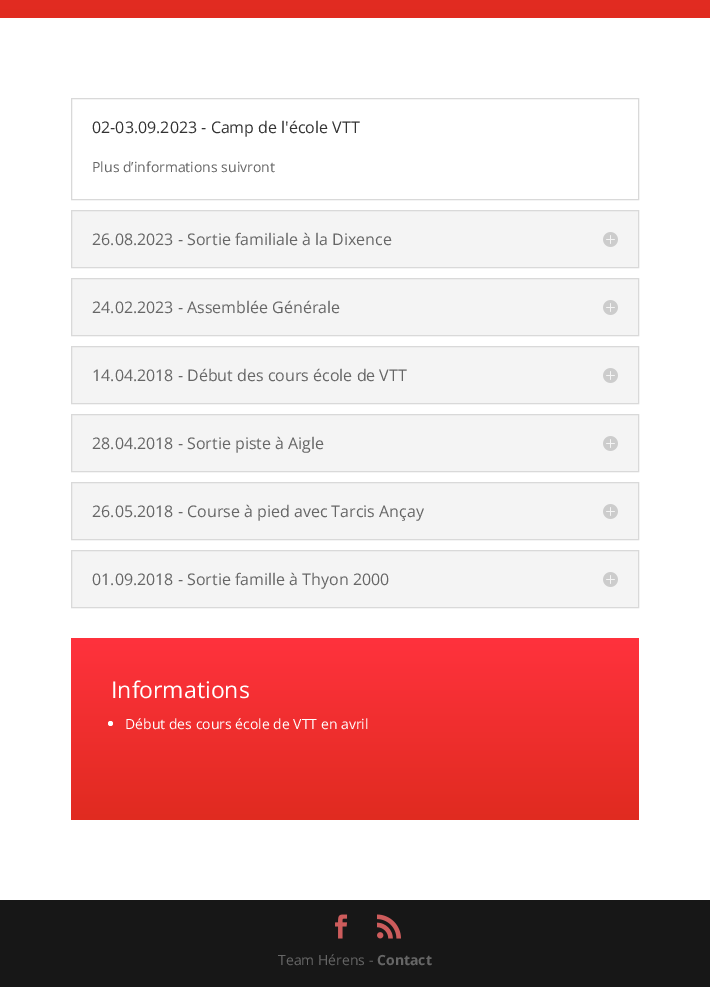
%!PS
<< /PageSize [710 987] >> setpagedevice
/mt/moveto load def
/li/lineto load def
/cp/closepath load def
/fl/fill load def
/st/stroke load def
/gs/gsave load def
/gr/grestore load def
/co { dup -16 bitshift 255 div exch dup -8 bitshift 255 and 255 div exch 255 and 255 div setrgbcolor } def
/fn { [ exch dup neg 0 0 3 -1 roll 0 0 ] selectfont } def
/tx { co fn moveto show } def
/bx { co rectfill } def
/ci { newpath 0 360 arc closepath } def
/im { 5 dict begin { /h /w /y /x /name } { exch def } forall
  gsave x y translate w h scale
  w h 8 [w 0 0 h 0 0] name (r) file false 3 colorimage grestore end } def
0 987 translate 1 -1 scale
4 setmiterlimit
0 0 710 987 16#FFFFFF bx
gs 0 0 mt 710 0 li 710 18 li 0 18 li cp clip newpath
<< /ShadingType 2 /ColorSpace /DeviceRGB /Coords [355 -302 355 18] /Extend [true true] /Function << /FunctionType 2 /Domain [0 1] /C0 [1 .196 .239] /C1 [.878 .169 .125] /N 1 >> >> shfill gr
16#D9D9D9 co
71.5 98.5 567 101 rectstroke
16#F4F4F4 co
71.5 210.5 mt 638.5 210.5 li 638.5 267.5 li 71.5 267.5 li cp gs fl gr
16#D9D9D9 co
st
(media/1.raw) 603 232 15 15 im
16#F4F4F4 co
71.5 278.5 mt 638.5 278.5 li 638.5 335.5 li 71.5 335.5 li cp gs fl gr
16#D9D9D9 co
st
(media/1.raw) 603 300 15 15 im
16#F4F4F4 co
71.5 346.5 mt 638.5 346.5 li 638.5 403.5 li 71.5 403.5 li cp gs fl gr
16#D9D9D9 co
st
(media/1.raw) 603 368 15 15 im
16#F4F4F4 co
71.5 414.5 mt 638.5 414.5 li 638.5 471.5 li 71.5 471.5 li cp gs fl gr
16#D9D9D9 co
st
(media/1.raw) 603 436 15 15 im
16#F4F4F4 co
71.5 482.5 mt 638.5 482.5 li 638.5 539.5 li 71.5 539.5 li cp gs fl gr
16#D9D9D9 co
st
(media/1.raw) 603 504 15 15 im
16#F4F4F4 co
71.5 550.5 mt 638.5 550.5 li 638.5 607.5 li 71.5 607.5 li cp gs fl gr
16#D9D9D9 co
st
(media/1.raw) 603 572 15 15 im
gs 71 638 mt 639 638 li 639 820 li 71 820 li cp clip newpath
<< /ShadingType 2 /ColorSpace /DeviceRGB /Coords [355 638 355 820] /Extend [true true] /Function << /FunctionType 2 /Domain [0 1] /C0 [1 .196 .239] /C1 [.878 .169 .125] /N 1 >> >> shfill gr
16#FFFFFF co
110.5 723.5 2.5 ci fl
0 900 710 87 16#171717 bx
(media/2.raw) 335 914 13 25 im
(media/3.raw) 377 914 24 25 im
(02-03.09.2023 - Camp de l'école VTT) 92 133 /OpenSans-Regular 16 16#333333 tx
(Plus d’informations suivront) 92 172 /OpenSans-Regular 14 16#666666 tx
(26.08.2023 - Sortie familiale à la Dixence) 92 245 /OpenSans-Regular 16 16#666666 tx
(24.02.2023 - Assemblée Générale) 92 313 /OpenSans-Regular 16 16#666666 tx
(14.04.2018 - Début des cours école de VTT) 92 381 /OpenSans-Regular 16 16#666666 tx
(28.04.2018 - Sortie piste à Aigle) 92 449 /OpenSans-Regular 16 16#666666 tx
(26.05.2018 - Course à pied avec Tarcis Ançay) 92 517 /OpenSans-Regular 16 16#666666 tx
(01.09.2018 - Sortie famille à Thyon 2000) 92 585 /OpenSans-Regular 16 16#666666 tx
(Informations) 111 698 /OpenSans-Regular 23 16#FFFFFF tx
(Début des cours école de VTT en avril) 125 729 /OpenSans-Regular 14 16#FFFFFF tx
(Team Hérens -) 278 965 /OpenSans-Regular 14 16#666666 tx
(Contact) 377 965 /OpenSans-Bold 14 16#666666 tx
showpage
